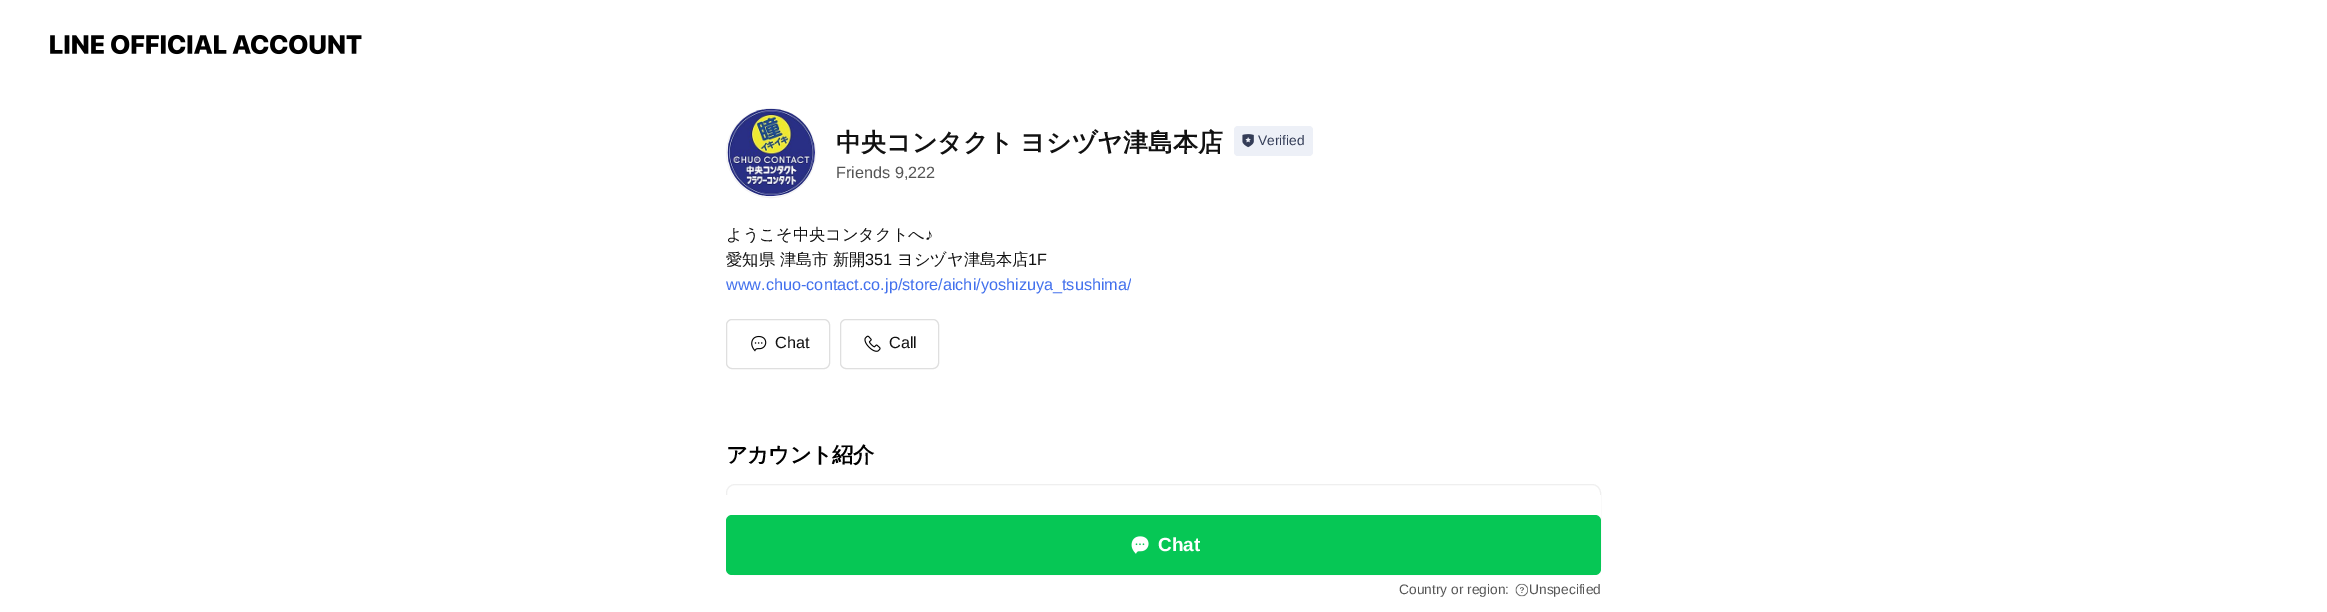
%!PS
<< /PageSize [2327 612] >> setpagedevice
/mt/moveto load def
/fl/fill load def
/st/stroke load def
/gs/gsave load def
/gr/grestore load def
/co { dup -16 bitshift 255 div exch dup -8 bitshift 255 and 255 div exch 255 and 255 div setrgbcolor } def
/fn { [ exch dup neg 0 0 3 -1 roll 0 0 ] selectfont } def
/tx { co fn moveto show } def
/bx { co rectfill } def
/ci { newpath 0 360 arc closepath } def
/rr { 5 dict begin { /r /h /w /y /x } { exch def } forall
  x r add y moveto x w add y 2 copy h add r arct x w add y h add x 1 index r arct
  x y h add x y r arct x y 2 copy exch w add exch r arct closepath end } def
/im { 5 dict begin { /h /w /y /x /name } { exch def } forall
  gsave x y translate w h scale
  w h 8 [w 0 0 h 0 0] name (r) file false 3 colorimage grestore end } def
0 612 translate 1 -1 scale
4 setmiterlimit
0 0 2327 612 16#FFFFFF bx
(media/1.raw) 50 34 312 21 im
16#F2F2F2 co
771 153 44.5 ci st
(media/2.raw) 727 108 88 89 im
16#EDF0F7 co
1234 126 79 30 4 rr fl
(media/3.raw) 1242 134 12 14 im
16#DFDFDF co
726.5 319.5 103 49 5.5 rr st
(media/4.raw) 751 335 16 17 im
840.5 319.5 98 49 5.5 rr st
(media/5.raw) 864 335 17 17 im
16#EFEFEF co
726.5 484.5 874 90 8.5 rr st
726 495 875 80 16#FFFFFF bx
16#06C755 co
726 515 875 60 6 rr fl
(media/6.raw) 1131 536 18 18 im
(media/7.raw) 1515 583 13 14 im
/WenQuanYiZenHei-Bold 25 fn
16#111111 co
836 151 mt -1 0 32 (中央コンタクト ヨシヅヤ津島本店) widthshow
(Verified) 1258 145 /LiberationSans-Regular 13.75 16#343D57 tx
(Friends 9,222) 836 178 /LiberationSans-Regular 16.25 16#555555 tx
(ようこそ中央コンタクトへ) 726 240 /WenQuanYiZenHei-Medium 16.25 16#111111 tx
(♪) 925 240 /LiberationSans-Regular 16.25 16#111111 tx
(愛知県 津島市 新開) 726 265 /WenQuanYiZenHei-Medium 16.25 16#111111 tx
(351) 865 265 /LiberationSans-Regular 16.25 16#111111 tx
(ヨシヅヤ津島本店) 897 265 /WenQuanYiZenHei-Medium 16.25 16#111111 tx
(1F) 1028 265 /LiberationSans-Regular 16.25 16#111111 tx
gs
726 274 405 24 rectclip
(www.chuo-contact.co.jp/store/aichi/yoshizuya_tsushima/) 726 290 /LiberationSans-Regular 16.25 16#4270ED tx
gr
(Chat) 775 348 /LiberationSans-Regular 16.25 16#111111 tx
(Call) 889 348 /LiberationSans-Regular 16.25 16#111111 tx
/WenQuanYiZenHei-Bold 21.25 fn
16#000000 co
726 462 mt -.5 0 (アカウント紹介) ashow
(Chat) 1158 551 /LiberationSans-Bold 19 16#FFFFFF tx
(Country or region:) 1399 594 /LiberationSans-Regular 13.75 16#555555 tx
(Unspecified) 1529 594 /LiberationSans-Regular 13.75 16#555555 tx
showpage
